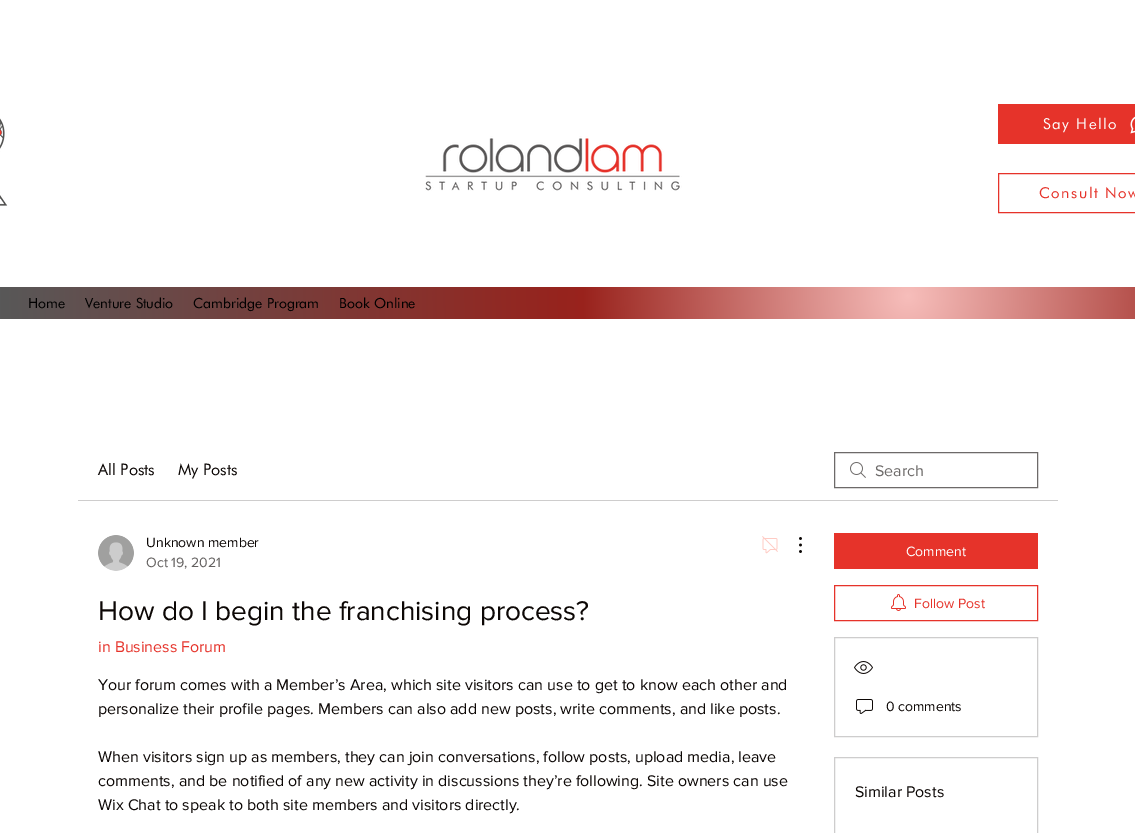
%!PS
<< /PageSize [1135 833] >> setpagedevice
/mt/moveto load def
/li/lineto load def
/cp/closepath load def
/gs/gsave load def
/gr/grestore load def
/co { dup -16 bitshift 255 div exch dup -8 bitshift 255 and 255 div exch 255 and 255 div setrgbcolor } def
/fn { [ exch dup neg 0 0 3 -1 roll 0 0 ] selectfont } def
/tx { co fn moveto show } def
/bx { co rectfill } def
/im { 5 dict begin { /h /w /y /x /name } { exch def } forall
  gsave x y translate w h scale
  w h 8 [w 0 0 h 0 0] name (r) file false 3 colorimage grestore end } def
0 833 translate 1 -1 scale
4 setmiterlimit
0 0 1135 833 16#FFFFFF bx
(media/1.raw) 0 118 8 88 im
(media/2.raw) 425 136 257 55 im
998 104 137 40 16#E6332A bx
(media/3.raw) 1130 116 5 18 im
998.5 173.5 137 39 rectstroke
gs 0 287 mt 1135 287 li 1135 319 li 0 319 li cp clip newpath 908 296 translate 908 908 scale
<< /ShadingType 3 /ColorSpace /DeviceRGB /Coords [0 0 0 0 0 1] /Extend [true true] /Function << /FunctionType 3 /Domain [0 1] /Functions [<< /FunctionType 2 /Domain [0 1] /C0 [.969 .745 .733] /C1 [.6 .133 .11] /N 1 >> << /FunctionType 2 /Domain [0 1] /C0 [.6 .133 .11] /C1 [.345 .345 .345] /N 1 >>] /Bounds [.36] /Encode [0 1 0 1] >> >> shfill gr
78 500 980 1 16#CECDCD bx
(media/4.raw) 850 462 16 16 im
16#6D6A69 co
834.5 452.5 203 35 rectstroke
(media/5.raw) 98 535 36 36 im
(media/6.raw) 762 536 16 18 im
(media/7.raw) 799 537 3 16 im
834 533 204 36 16#E6332A bx
834.5 585.5 203 35 rectstroke
(media/8.raw) 891 594 15 17 im
16#CECDCD co
834.5 637.5 203 99 rectstroke
(media/9.raw) 854 661 19 13 im
(media/10.raw) 856 699 17 15 im
834.5 757.5 203 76 rectstroke
/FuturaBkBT-Regular 15 fn
16#FEFEFE co
1043 129 mt 1.5 0 (Say Hello) ashow
16#E6332A co
1039 198 mt 1.5 0 (Consult Now) ashow
(Home) 28 308 /FuturaBkBT-Regular 14 16#000000 tx
(Venture Studio) 85 308 /FuturaBkBT-Regular 14 16#000000 tx
(Cambridge Program) 193 308 /FuturaBkBT-Regular 14 16#000000 tx
(Book Online) 339 308 /FuturaBkBT-Regular 14 16#000000 tx
(All Posts) 98 475 /FuturaBkBT-Regular 16 16#0C0705 tx
(My Posts) 178 475 /FuturaBkBT-Regular 16 16#0C0705 tx
(Search) 875 476 /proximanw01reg-Regular 16 16#6D6A69 tx
(Unknown member) 146 547 /proximanw01reg-Regular 14 16#0C0705 tx
(Oct 19, 2021) 146 567 /proximanw01reg-Regular 14 16#63605F tx
(How do I begin the franchising process?) 98 620 /proximanw01reg-Regular 28 16#0C0705 tx
(in Business Forum) 98 652 /proximanw01reg-Regular 16 16#E6332A tx
(Your forum comes with a Member’s Area, which site visitors can use to get to know each other and) 98 690 /proximanw01reg-Regular 16 16#0C0705 tx
(personalize their profile pages. Members can also add new posts, write comments, and like posts.) 98 714 /proximanw01reg-Regular 16 16#0C0705 tx
(When visitors sign up as members, they can join conversations, follow posts, upload media, leave) 98 762 /proximanw01reg-Regular 16 16#0C0705 tx
(comments, and be notified of any new activity in discussions they’re following. Site owners can use) 98 786 /proximanw01reg-Regular 16 16#0C0705 tx
(Wix Chat to speak to both site members and visitors directly.) 98 810 /proximanw01reg-Regular 16 16#0C0705 tx
(Comment) 906 556 /proximanw01reg-Regular 14 16#FEFEFE tx
(Follow Post) 914 608 /proximanw01reg-Regular 14 16#E6332A tx
(0 comments) 886 711 /proximanw01reg-Regular 14 16#0C0705 tx
(Similar Posts) 855 797 /proximanw01reg-Regular 16 16#0C0705 tx
showpage
